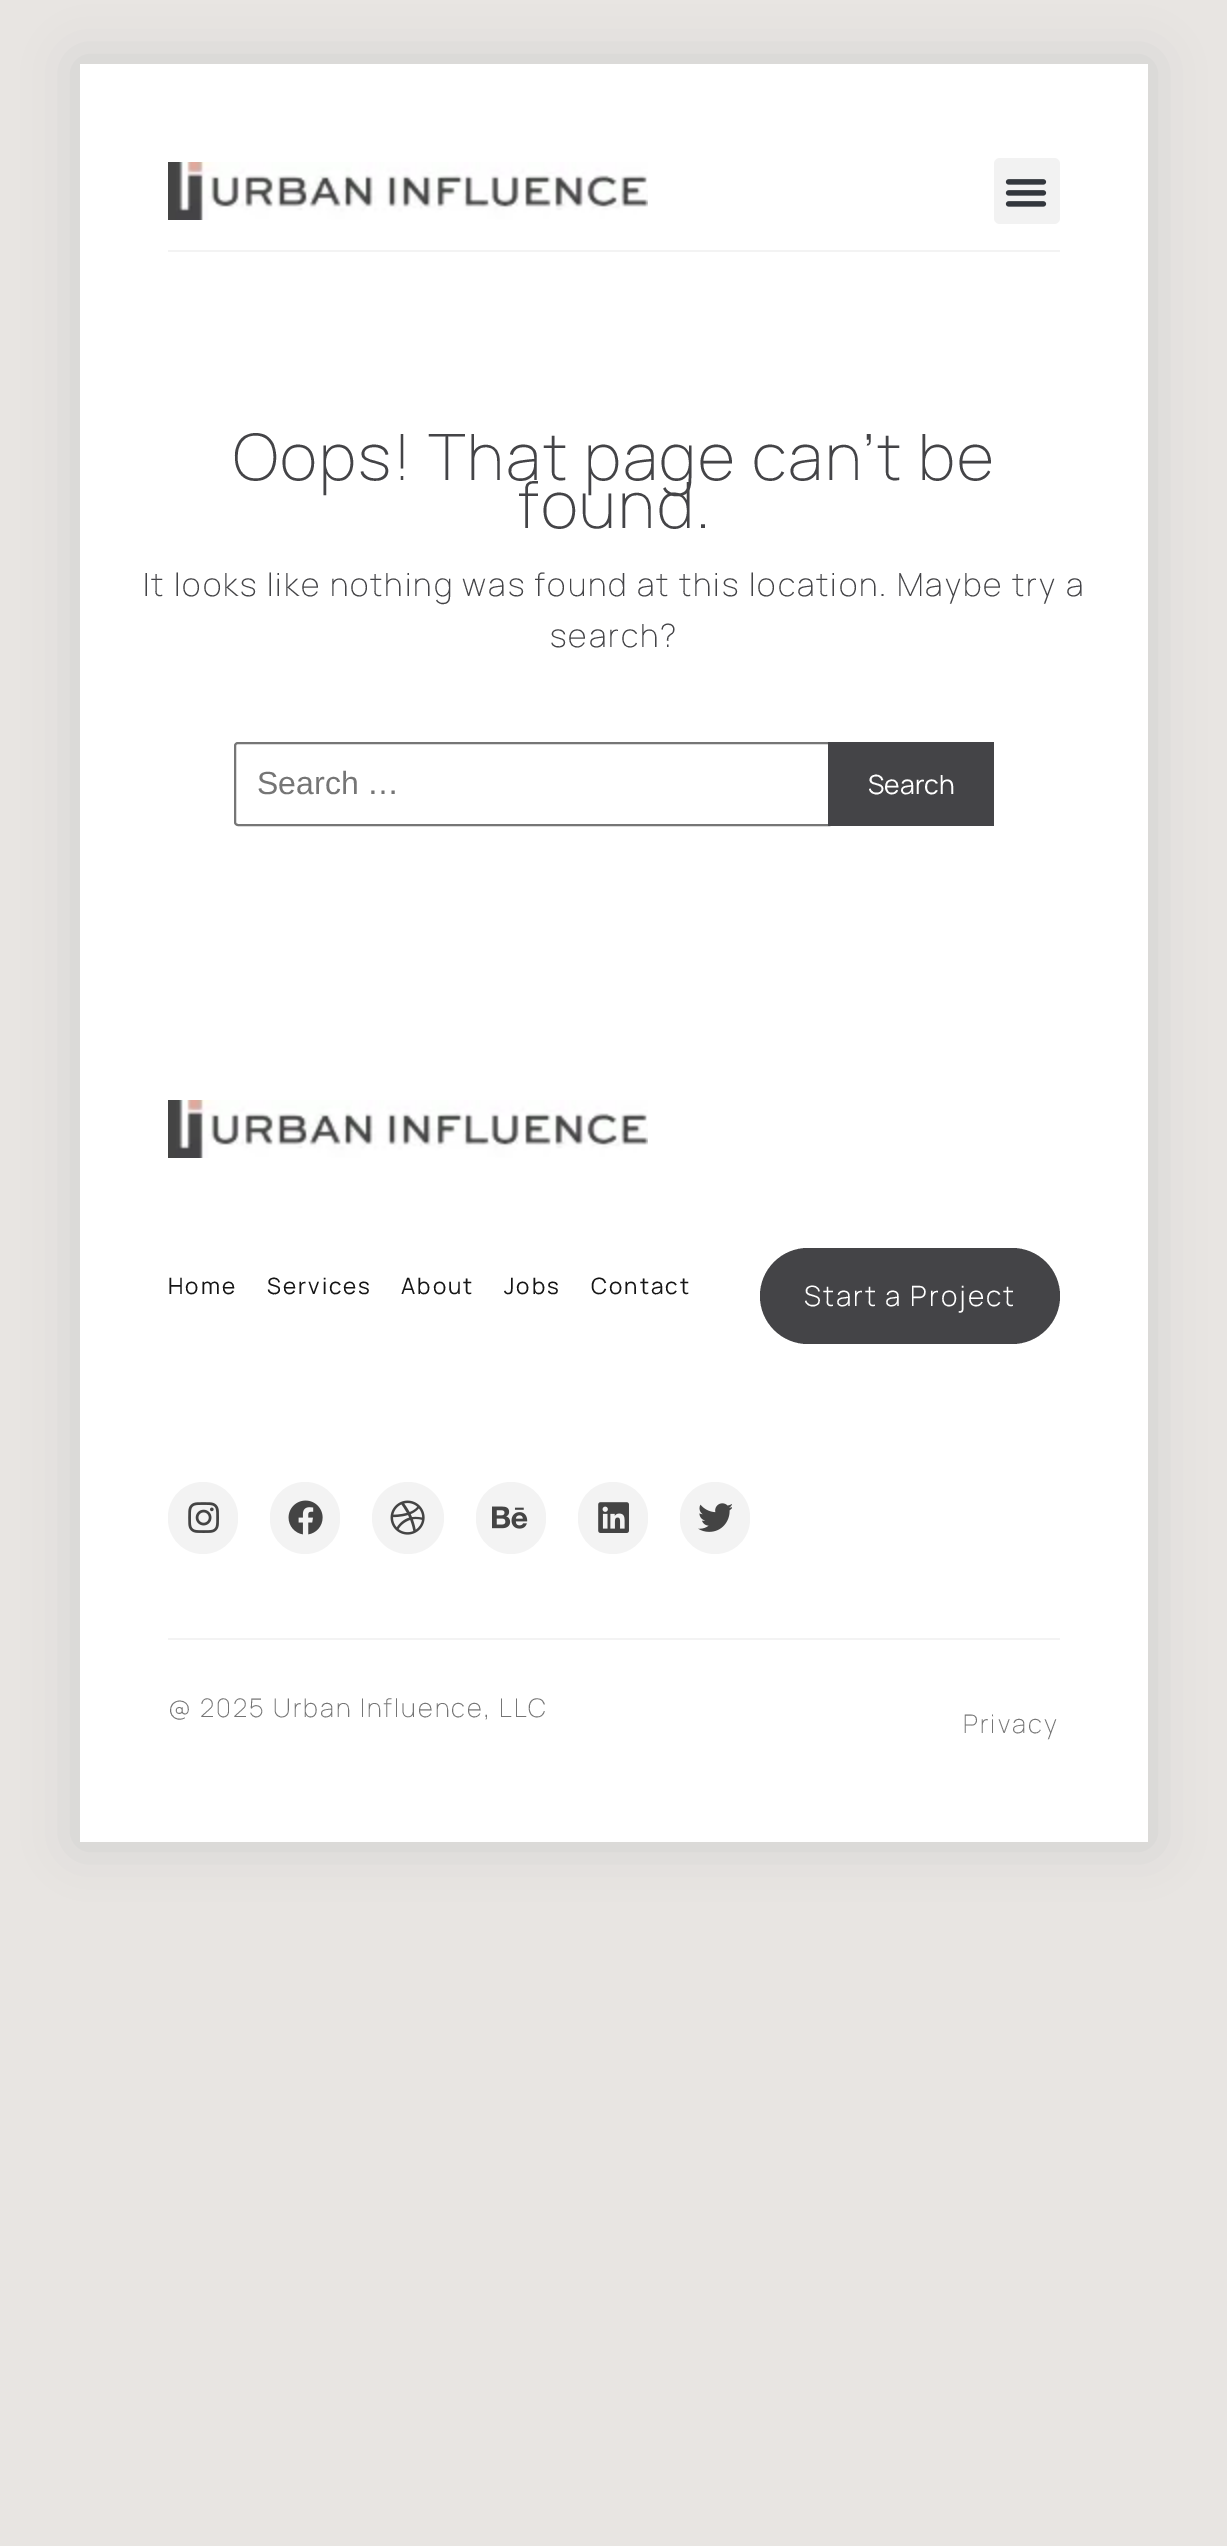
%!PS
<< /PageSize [1227 2546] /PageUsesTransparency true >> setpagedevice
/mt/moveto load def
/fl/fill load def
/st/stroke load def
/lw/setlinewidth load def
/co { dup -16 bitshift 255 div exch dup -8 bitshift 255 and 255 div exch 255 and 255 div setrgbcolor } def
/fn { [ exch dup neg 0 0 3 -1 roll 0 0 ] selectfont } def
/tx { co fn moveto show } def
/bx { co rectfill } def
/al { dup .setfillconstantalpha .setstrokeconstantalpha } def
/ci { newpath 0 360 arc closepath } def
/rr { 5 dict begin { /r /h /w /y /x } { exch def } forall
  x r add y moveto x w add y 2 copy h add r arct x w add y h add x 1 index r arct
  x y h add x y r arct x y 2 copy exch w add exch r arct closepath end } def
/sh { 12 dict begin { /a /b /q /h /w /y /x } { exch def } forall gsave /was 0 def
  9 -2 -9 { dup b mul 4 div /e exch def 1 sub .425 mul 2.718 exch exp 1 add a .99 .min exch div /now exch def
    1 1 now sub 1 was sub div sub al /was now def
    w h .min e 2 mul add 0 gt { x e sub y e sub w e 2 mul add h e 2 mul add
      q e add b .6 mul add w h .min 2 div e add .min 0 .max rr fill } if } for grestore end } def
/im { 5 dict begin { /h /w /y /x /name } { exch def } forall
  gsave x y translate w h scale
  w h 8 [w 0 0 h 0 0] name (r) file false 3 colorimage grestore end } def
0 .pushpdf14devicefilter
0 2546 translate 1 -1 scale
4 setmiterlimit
0 0 1227 2546 16#E8E5E2 bx
16#CFCFCF co
76 60 1076 1786 0 25 1 sh
80 64 1068 1778 16#FFFFFF bx
(media/1.raw) 168 162 480 58 im
16#F2F2F2 co
994 158 66 66 6 rr fl
(media/2.raw) 1005 179 42 28 im
168 250 892 2 16#F3F3F3 bx
16#767676 co
2 lw
235 743 598 82 3 rr st
828 742 166 84 16#444447 bx
(media/1.raw) 168 1100 480 58 im
760 1248 300 96 48 rr fl
16#F3F3F3 co
168 1482 70 72 35 rr fl
(media/3.raw) 188 1502 31 31 im
270 1482 70 72 35 rr fl
(media/4.raw) 288 1500 35 35 im
408 1518 36 ci fl
(media/5.raw) 390 1500 35 35 im
476 1482 70 72 35 rr fl
(media/6.raw) 492 1506 36 23 im
578 1482 70 72 35 rr fl
(media/7.raw) 598 1502 31 31 im
680 1482 70 72 35 rr fl
(media/8.raw) 698 1503 34 29 im
168 1638 892 2 16#F3F3F3 bx
/Manrope-ExtraLight 64 fn
16#444447 co
233 480 mt 2 0 (Oops! That page can’t be) ashow
517 528 mt 2 0 (found.) ashow
/Manrope-ExtraLight 32 fn
143 596 mt 2 0 (It looks like nothing was found at this location. Maybe try a) ashow
550 647 mt 2 0 (search?) ashow
(Search …) 257 794 /LiberationSans-Regular 32 16#757575 tx
(Search) 868 794 /Manrope-Regular 26.5 16#FFFFFF tx
/Manrope-Regular 22.5 fn
16#151515 co
168 1294 mt 2 0 (Home) ashow
267 1294 mt 2 0 (Services) ashow
401 1294 mt 2 0 (About) ashow
504 1294 mt 2 0 (Jobs) ashow
591 1294 mt 2 0 (Contact) ashow
/Manrope-Light 28 fn
16#FFFFFF co
804 1306 mt 2 0 (Start a Project) ashow
/Manrope-ExtraLight 25.6 fn
16#757575 co
168 1717 mt 2 0 (@ 2025 Urban Influence, LLC) ashow
963 1733 mt 2 0 (Privacy) ashow
.poppdf14devicefilter showpage
